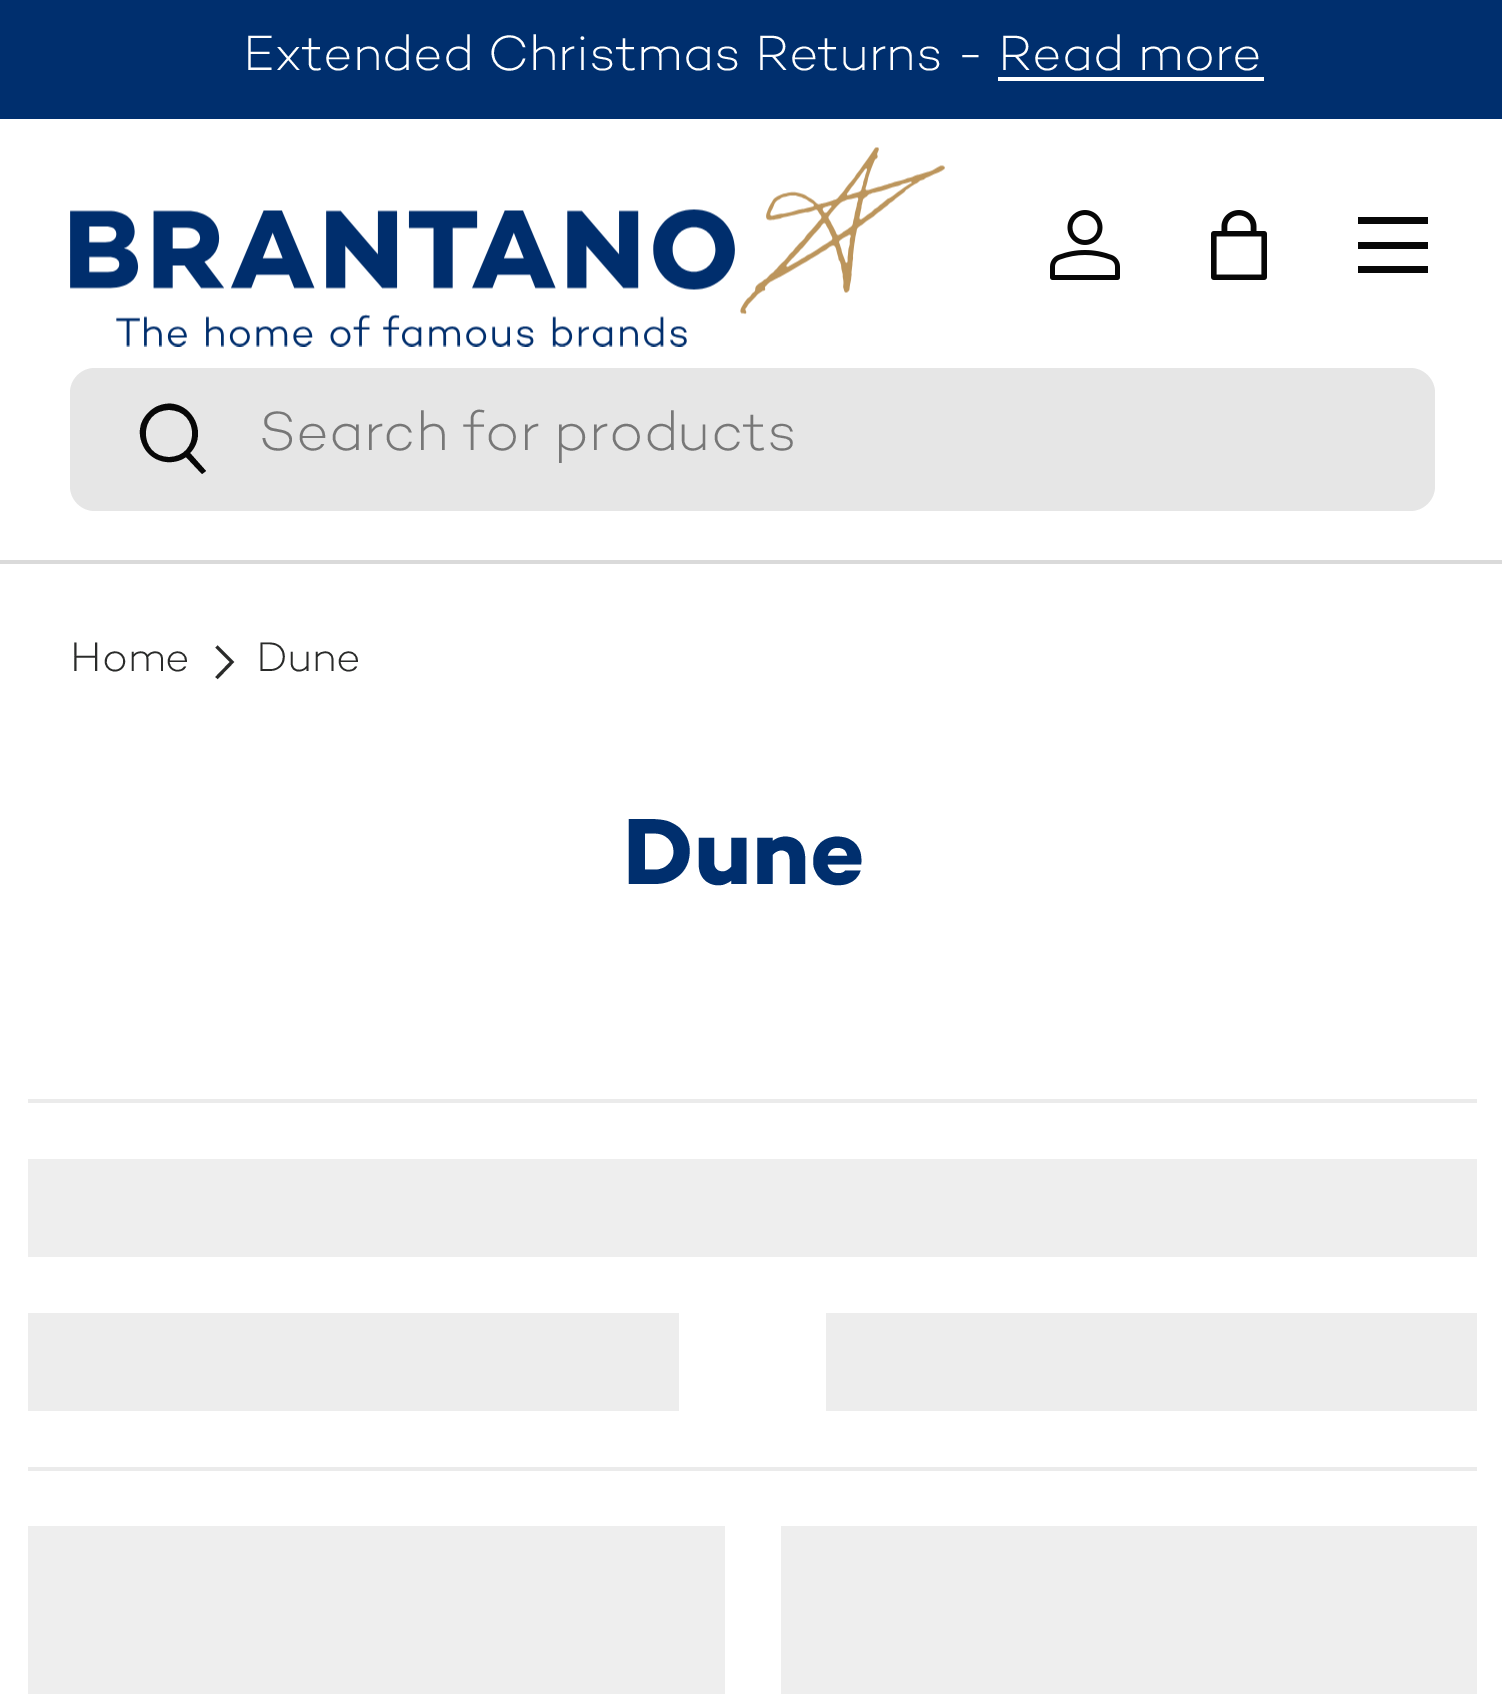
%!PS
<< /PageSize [1502 1694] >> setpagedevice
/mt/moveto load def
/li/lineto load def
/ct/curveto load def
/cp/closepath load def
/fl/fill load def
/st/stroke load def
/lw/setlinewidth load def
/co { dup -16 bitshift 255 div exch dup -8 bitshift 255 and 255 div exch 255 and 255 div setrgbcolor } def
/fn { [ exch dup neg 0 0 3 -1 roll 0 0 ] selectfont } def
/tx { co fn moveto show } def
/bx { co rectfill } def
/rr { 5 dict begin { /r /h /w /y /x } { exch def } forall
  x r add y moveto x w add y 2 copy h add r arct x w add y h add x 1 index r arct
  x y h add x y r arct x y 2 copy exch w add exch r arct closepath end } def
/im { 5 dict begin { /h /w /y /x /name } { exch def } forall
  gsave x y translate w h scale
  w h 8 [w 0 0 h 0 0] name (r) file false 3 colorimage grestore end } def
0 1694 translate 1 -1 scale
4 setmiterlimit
0 0 1502 1694 16#FFFFFF bx
0 0 1502 119 16#002F6E bx
998 77 266 4 16#FFFFFF bx
0 560 1502 4 16#DADADA bx
(media/1.raw) 70 147 875 200 im
(media/2.raw) 1050 210 70 70 im
(media/3.raw) 1211 210 56 70 im
1358 217 70 7 16#070707 bx
1358 266 70 7 16#070707 bx
1358 242 70 7 16#070707 bx
16#E6E6E6 co
70 368 1365 143 25 rr fl
16#070707 co
190 453 mt 206 471 li 202 474 li 186 457 li 173 466 154 463 145 449 ct 140 441 138 431 142 422 ct 145 415 151 409 158 406 ct 187 394 211 431 190 453 ct cp 169 457 mt 200 457 200 410 169 410 ct 138 410 138 457 169 457 ct cp fl
16#2A2B2A co
3.1 lw
216.5 646.5 mt 232 662 li 216.5 678 li st
28 1099 1449 4 16#EBEBEB bx
28 1467 1449 4 16#EBEBEB bx
28 1159 1449 98 16#EEEEEE bx
28 1313 651 98 16#EDEDED bx
826 1313 651 98 16#EDEDED bx
28 1526 697 168 16#EEEEEE bx
781 1526 696 168 16#EEEEEE bx
(Extended Christmas Returns -) 243 70 /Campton-Light 50.4 16#FFFFFF tx
(Read more) 998 70 /Campton-Light 50.4 16#FFFFFF tx
(Search for products) 259 450 /Campton-Light 56 16#777777 tx
(Home) 70 671 /Campton-Light 42 16#2A2B2A tx
(Dune) 256 671 /Campton-Light 42 16#2A2B2A tx
(Dune) 623 884 /Campton-Bold 95.5 16#002F6E tx
showpage
